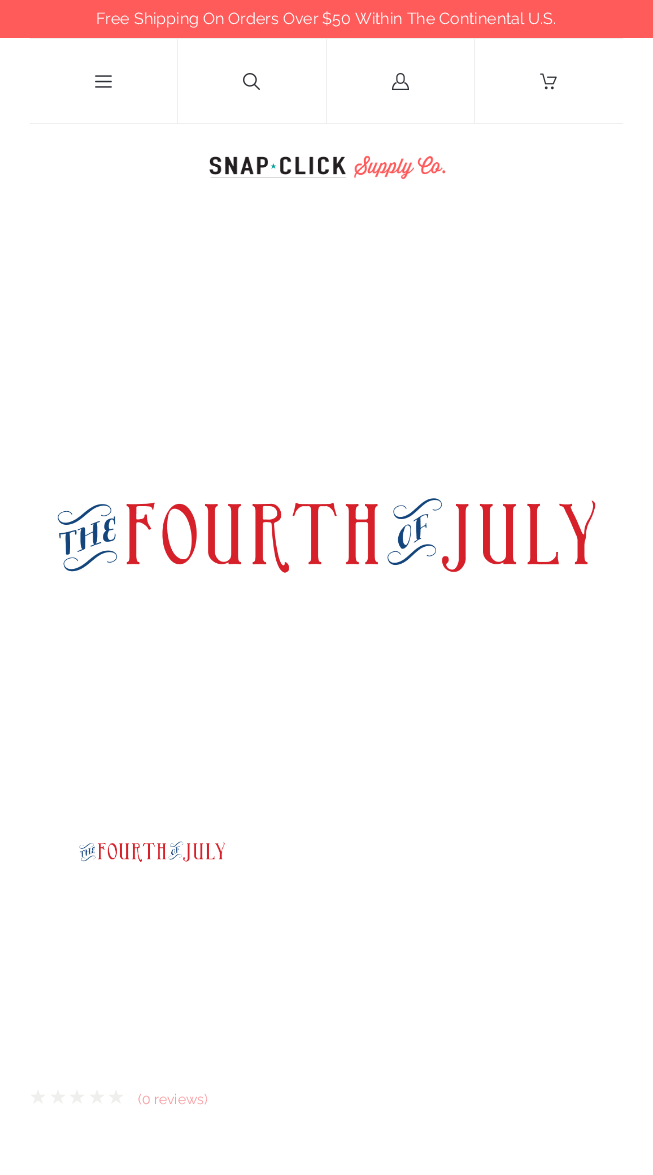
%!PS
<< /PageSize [653 1175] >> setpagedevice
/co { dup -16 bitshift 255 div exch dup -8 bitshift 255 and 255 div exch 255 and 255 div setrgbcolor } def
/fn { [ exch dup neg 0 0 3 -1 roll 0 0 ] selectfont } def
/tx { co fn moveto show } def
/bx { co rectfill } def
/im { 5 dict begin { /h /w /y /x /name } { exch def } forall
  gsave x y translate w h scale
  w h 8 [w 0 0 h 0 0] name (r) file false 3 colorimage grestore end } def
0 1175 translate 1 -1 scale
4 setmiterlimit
0 0 653 1175 16#FFFFFF bx
0 0 653 38 16#FF5B5B bx
30 38 593 1 16#EFEFED bx
30 123 593 1 16#EFEFED bx
177 39 1 85 16#EFEFED bx
(media/1.raw) 95 75 17 13 im
326 39 1 85 16#EFEFED bx
(media/2.raw) 243 73 17 17 im
474 39 1 85 16#EFEFED bx
(media/3.raw) 392 73 17 17 im
(media/4.raw) 540 73 17 17 im
(media/5.raw) 209 155 237 25 im
(media/6.raw) 57 498 539 75 im
(media/7.raw) 79 841 146 21 im
(media/8.raw) 31 1090 14 14 im
(media/8.raw) 51 1090 14 14 im
(media/8.raw) 70 1090 14 14 im
(media/8.raw) 90 1090 14 14 im
(media/8.raw) 109 1090 14 14 im
(Free Shipping On Orders Over $50 Within The Continental U.S.) 96 24 /Raleway-Regular 16 16#FFFFFF tx
(\(0 reviews\)) 138 1104 /Raleway-Regular 14 16#F89CA1 tx
showpage
